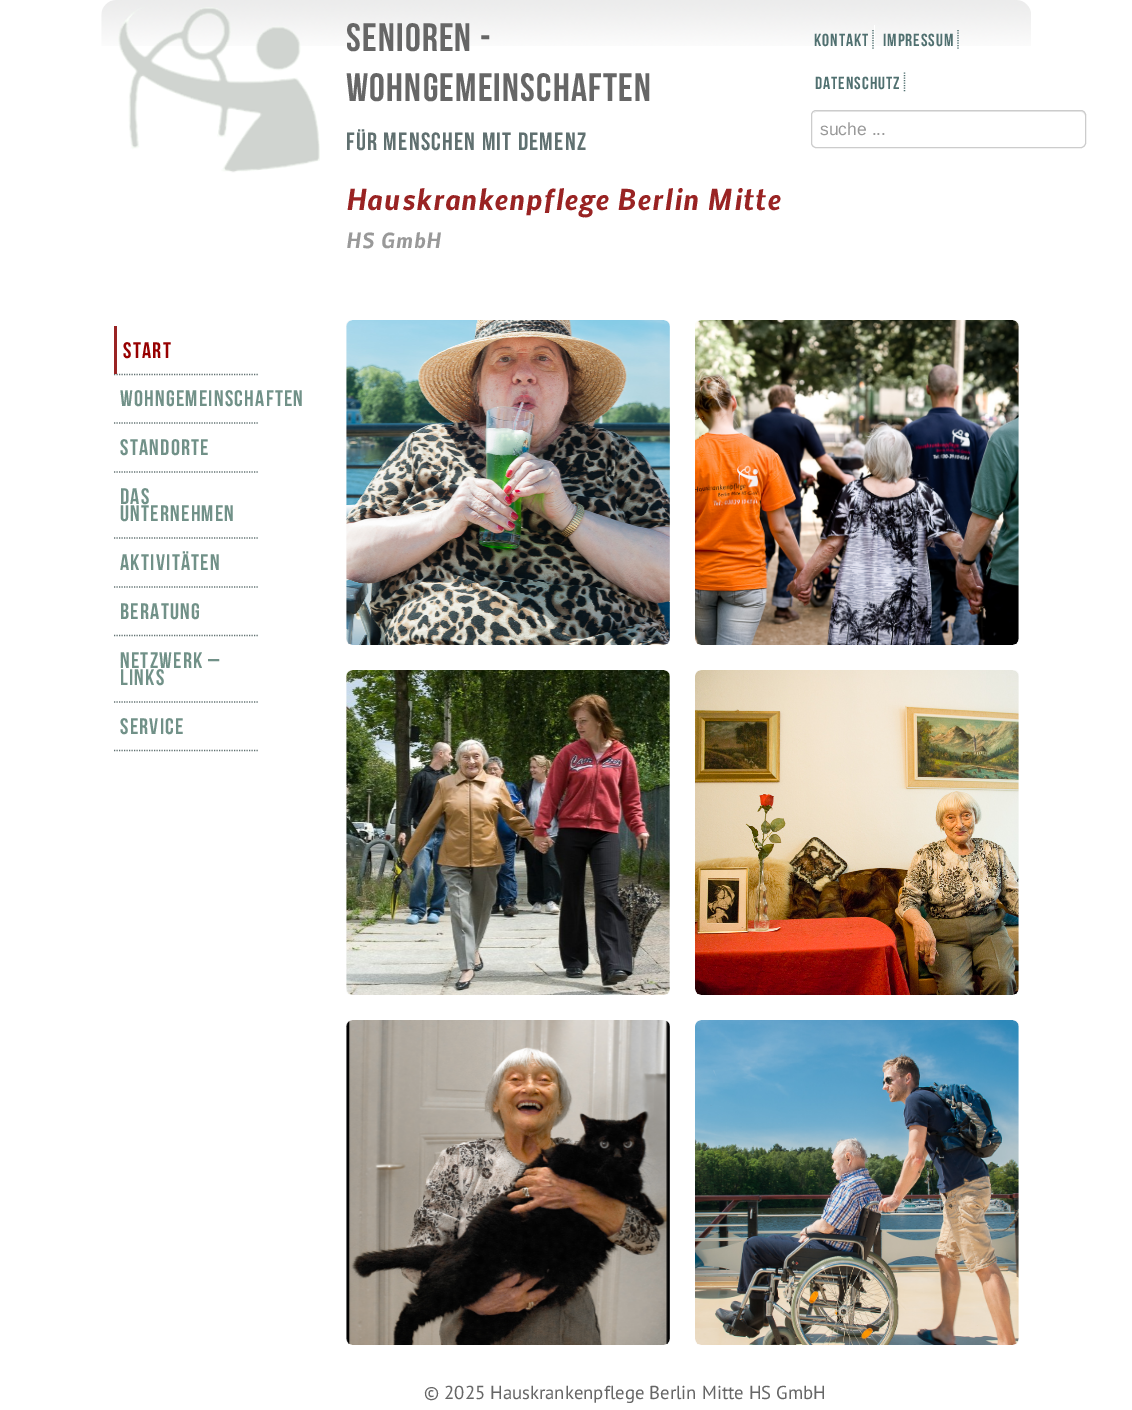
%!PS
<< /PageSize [1132 1410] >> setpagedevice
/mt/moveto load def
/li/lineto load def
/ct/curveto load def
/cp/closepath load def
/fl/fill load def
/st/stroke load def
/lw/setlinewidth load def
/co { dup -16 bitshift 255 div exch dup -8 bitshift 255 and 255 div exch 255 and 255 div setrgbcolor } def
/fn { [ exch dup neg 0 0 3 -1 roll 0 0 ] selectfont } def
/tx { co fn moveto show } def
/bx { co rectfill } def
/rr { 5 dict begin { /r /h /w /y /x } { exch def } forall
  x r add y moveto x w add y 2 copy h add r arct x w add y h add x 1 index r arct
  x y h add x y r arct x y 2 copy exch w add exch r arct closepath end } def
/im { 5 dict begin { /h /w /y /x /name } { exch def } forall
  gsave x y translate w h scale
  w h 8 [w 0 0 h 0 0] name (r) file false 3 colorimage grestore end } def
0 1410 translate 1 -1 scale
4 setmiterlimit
0 0 1132 1410 16#FFFFFF bx
(media/1.raw) 101 0 930 46 im
(media/2.raw) 118 7 202 166 im
16#507070 co
1.2 lw
[1.25 1.25] 0 setdash
873 30 mt 873 50 li st
874 25 1 21 16#FFFFFF bx
16#507070 co
958 30 mt 958 50 li st
904.5 72.5 mt 904.5 92.5 li st
16#ECECEC co
816 112 mt 1081 112 li 1083 112 1085 114 1085 116 ct 1085 115 li 1085 113 1083 111 1081 111 ct 817 111 li 816 111 814 112 814 113 ct cp fl
16#CCCCCC co
1 lw
[] 0 setdash
811.5 110.5 274 37 4.5 rr st
16#607070 co
1.2 lw
[1.25 1.25] 0 setdash
114 374.5 mt 259 374.5 li st
114 326 3 48 16#992323 bx
16#607070 co
114 423 mt 259 423 li st
114 472 mt 259 472 li st
114 538 mt 259 538 li st
114 587 mt 259 587 li st
114 635.5 mt 259 635.5 li st
114 702 mt 259 702 li st
114 750.5 mt 259 750.5 li st
(media/3.raw) 346 320 324 325 im
(media/4.raw) 695 320 324 325 im
(media/5.raw) 346 670 324 325 im
(media/6.raw) 695 670 324 325 im
(media/7.raw) 346 1020 324 325 im
(media/8.raw) 695 1020 324 325 im
/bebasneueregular-Regular 39.5 fn
16#666666 co
346 51 mt 1.25 0 (Senioren -) ashow
346 101 mt 1.25 0 (Wohngemeinschaften) ashow
/bebasneueregular-Regular 25 fn
16#607070 co
346 150 mt 1.25 0 (für Menschen mit Demenz) ashow
/Nobile-BoldItalic 27.5 fn
16#992323 co
346 210 mt 1.25 0 (Hauskrankenpflege Berlin Mitte) ashow
/Nobile-BoldItalic 20 fn
16#999999 co
346 248 mt 1.25 0 (HS GmbH) ashow
/bebasneueregular-Regular 17.5 fn
16#507070 co
814 46 mt 1 0 (Kontakt) ashow
883 46 mt 1 0 (Impressum) ashow
815 89 mt 1 0 (Datenschutz) ashow
(suche ...) 820 135 /LiberationSans-Regular 17.5 16#999999 tx
/bebasneueregular-Regular 22.5 fn
16#970000 co
123 358 mt 1.25 0 (Start) ashow
16#719188 co
120 406 mt 1.25 0 (Wohngemeinschaften) ashow
120 455 mt 1.25 0 (Standorte) ashow
120 504 mt 1.25 0 (Das) ashow
120 521 mt 1.25 0 (Unternehmen) ashow
120 570 mt 1.25 0 (Aktivitäten) ashow
120 619 mt 1.25 0 (Beratung) ashow
120 668 mt 1.25 0 (Netzwerk –) ashow
120 685 mt 1.25 0 (Links) ashow
120 734 mt 1.25 0 (Service) ashow
(© 2025 Hauskrankenpflege Berlin Mitte HS GmbH) 424 1399 /PTSans-Regular 18.75 16#666666 tx
showpage
